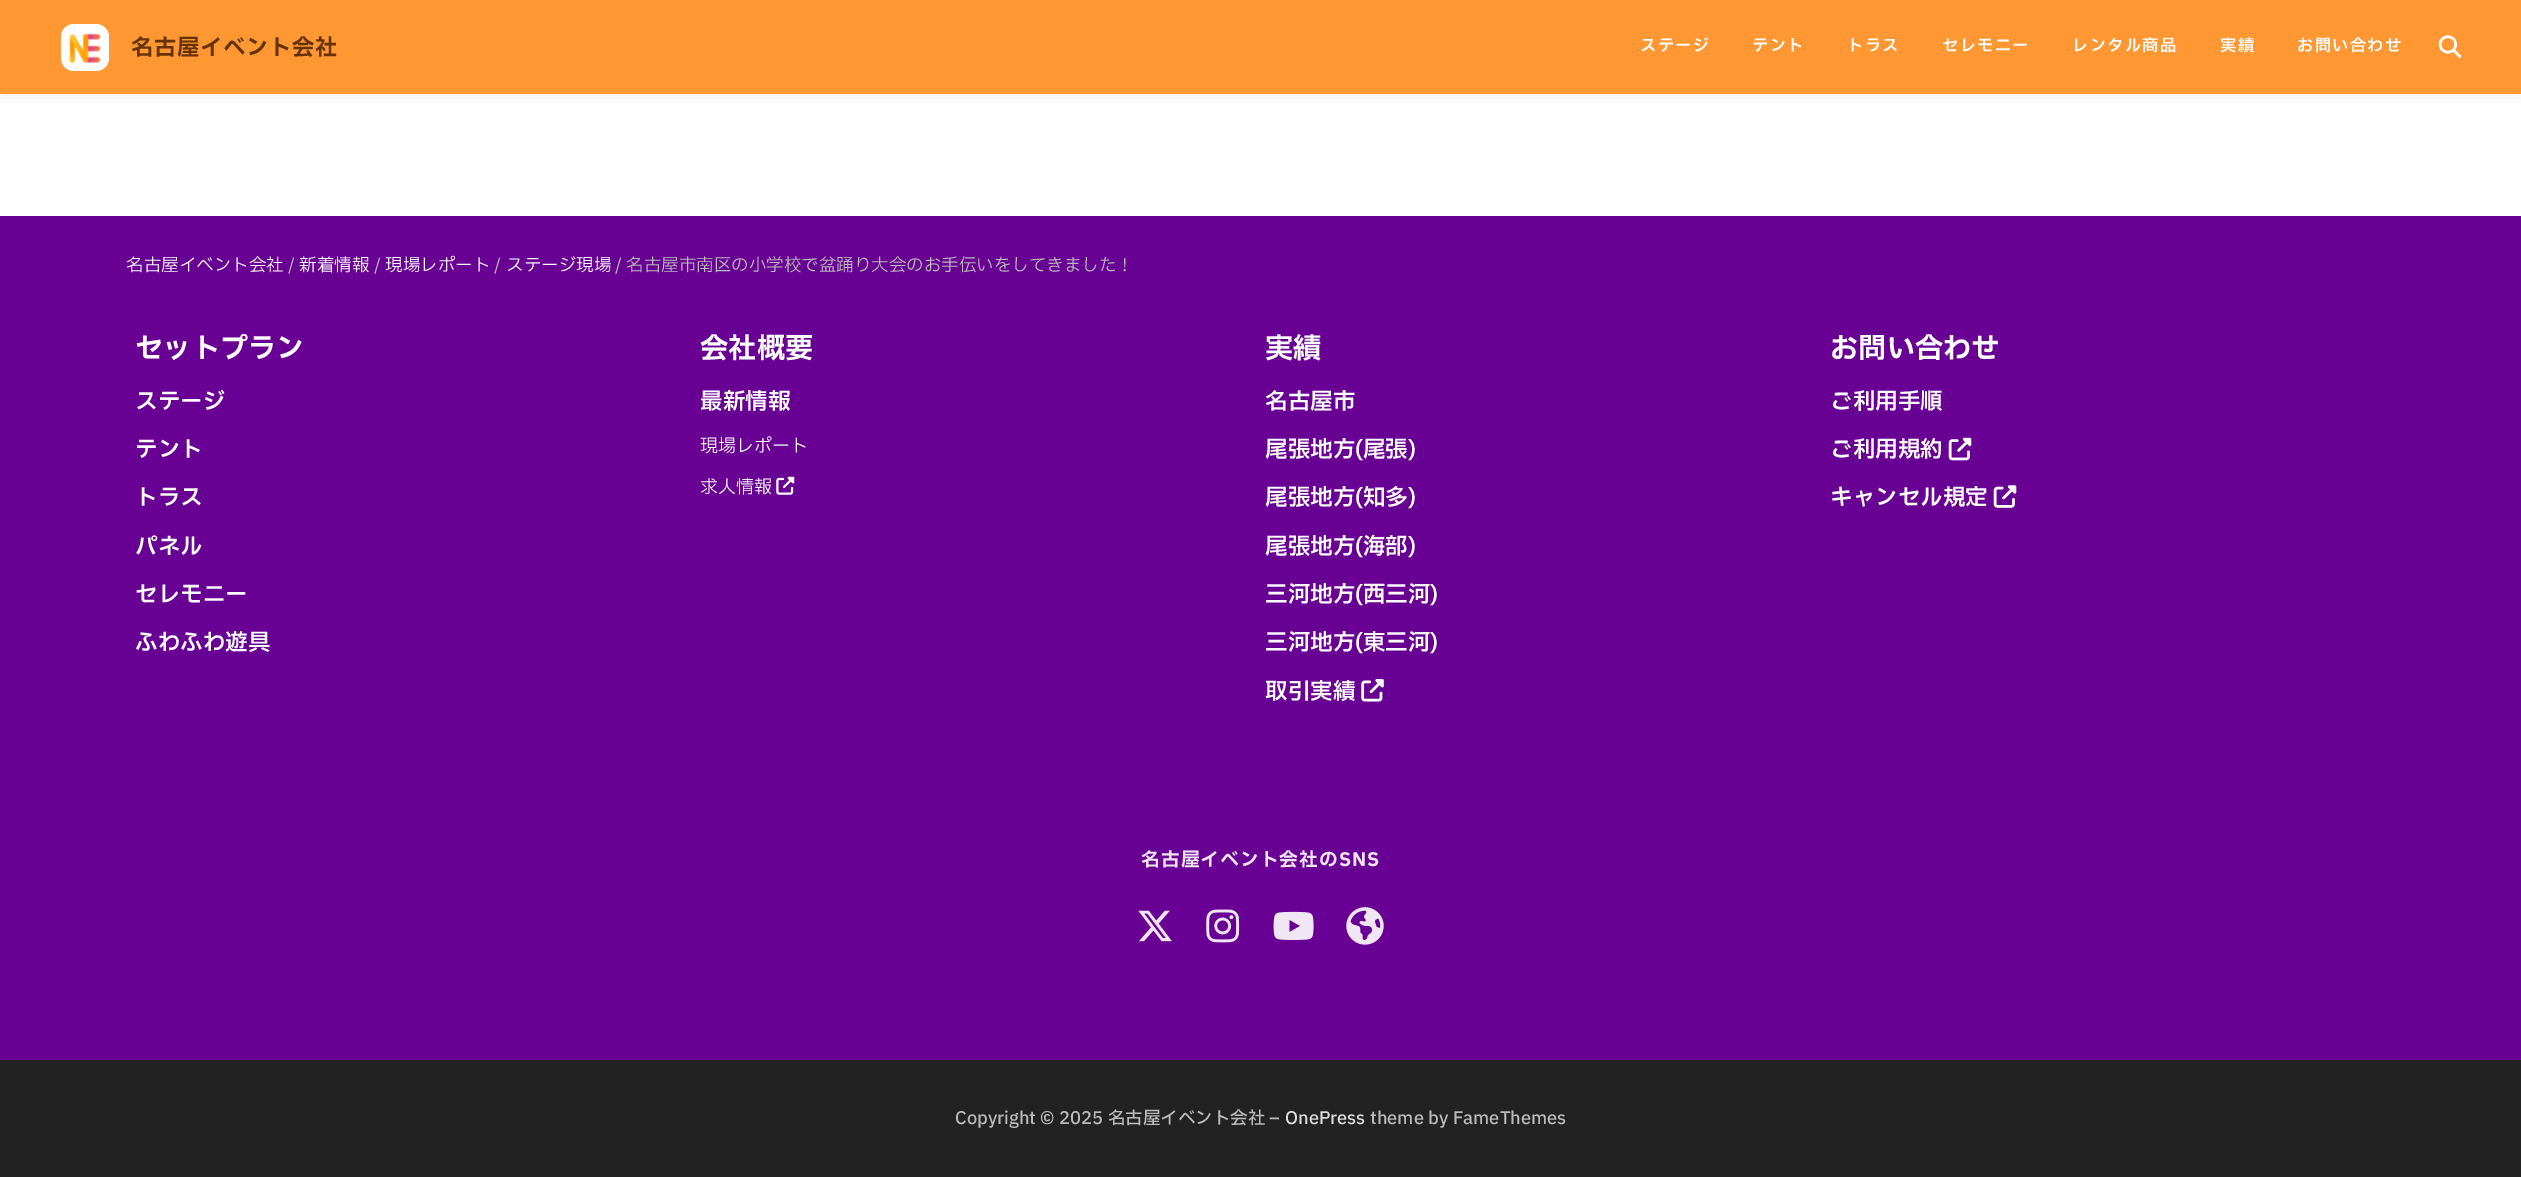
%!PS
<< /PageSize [2521 1177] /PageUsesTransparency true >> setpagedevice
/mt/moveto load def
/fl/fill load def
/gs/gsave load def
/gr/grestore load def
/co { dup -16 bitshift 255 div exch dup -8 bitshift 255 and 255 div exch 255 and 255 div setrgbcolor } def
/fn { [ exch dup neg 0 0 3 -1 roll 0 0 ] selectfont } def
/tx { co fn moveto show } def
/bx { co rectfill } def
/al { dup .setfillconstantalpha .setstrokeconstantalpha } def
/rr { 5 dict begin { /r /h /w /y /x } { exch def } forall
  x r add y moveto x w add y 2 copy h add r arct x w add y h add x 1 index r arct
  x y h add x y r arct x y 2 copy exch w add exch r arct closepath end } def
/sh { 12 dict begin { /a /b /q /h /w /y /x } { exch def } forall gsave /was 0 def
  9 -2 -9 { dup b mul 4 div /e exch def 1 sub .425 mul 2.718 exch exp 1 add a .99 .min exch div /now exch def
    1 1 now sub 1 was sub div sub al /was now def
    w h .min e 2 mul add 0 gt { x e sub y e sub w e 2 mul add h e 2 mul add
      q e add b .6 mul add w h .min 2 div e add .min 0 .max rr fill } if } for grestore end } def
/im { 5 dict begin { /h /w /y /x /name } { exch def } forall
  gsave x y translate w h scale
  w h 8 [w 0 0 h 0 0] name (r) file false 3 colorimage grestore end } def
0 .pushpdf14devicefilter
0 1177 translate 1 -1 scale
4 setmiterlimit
0 0 2521 1177 16#FFFFFF bx
gs
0 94 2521 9 rectclip
16#323232 co
0 6 2521 94 0 6 .06 sh
gr
0.8 al
0 0 2521 94 16#FF7D00 bx
1 al
16#FFFFFF co
61 24 48 47 13 rr fl
(media/1.raw) 69 33 32 31 im
(media/2.raw) 2438 35 24 23 im
0 216 2521 844 16#670093 bx
(media/3.raw) 776 476 19 19 im
(media/4.raw) 1361 679 23 23 im
(media/5.raw) 1948 437 24 24 im
(media/6.raw) 1993 485 24 23 im
(media/7.raw) 1138 910 34 32 im
(media/8.raw) 1206 909 34 34 im
(media/9.raw) 1273 911 41 29 im
(media/10.raw) 1346 907 38 38 im
0 1060 2521 117 16#222222 bx
/IBMPlexSansJP-Bold 22.25 fn
16#663300 co
131 55 mt .75 0 (名古屋イベント会社) ashow
/IBMPlexSansJP-SemiBold 16.25 fn
16#FFFFFF co
1640 51 mt 1.25 0 (ステージ) ashow
1752 51 mt 1.25 0 (テント) ashow
1847 51 mt 1.25 0 (トラス) ashow
1942 51 mt 1.25 0 (セレモニー) ashow
2072 51 mt 1.25 0 (レンタル商品) ashow
2220 51 mt 1.25 0 (実績) ashow
2297 51 mt 1.25 0 (お問い合わせ) ashow
(名古屋イベント会社) 126 271 /IBMPlexSansJP-Regular 17.5 16#FFFFFF tx
(/) 288 271 /IBMPlexSansJP-Regular 17.5 16#BBBBBB tx
(新着情報) 299 271 /IBMPlexSansJP-Regular 17.5 16#FFFFFF tx
(/) 374 271 /IBMPlexSansJP-Regular 17.5 16#BBBBBB tx
(現場レポート) 385 271 /IBMPlexSansJP-Regular 17.5 16#FFFFFF tx
(/) 494 271 /IBMPlexSansJP-Regular 17.5 16#BBBBBB tx
(ステージ現場) 506 271 /IBMPlexSansJP-Regular 17.5 16#FFFFFF tx
(/ 名古屋市南区の小学校で盆踊り大会のお手伝いをしてきました！) 615 271 /IBMPlexSansJP-Regular 17.5 16#BBBBBB tx
(セットプラン) 135 358 /IBMPlexSansJP-Bold 28.25 16#FFFFFF tx
(ステージ) 135 409 /IBMPlexSansJP-SemiBold 22.5 16#FFFFFF tx
(テント) 135 457 /IBMPlexSansJP-SemiBold 22.5 16#FFFFFF tx
(トラス) 135 505 /IBMPlexSansJP-SemiBold 22.5 16#FFFFFF tx
(パネル) 135 554 /IBMPlexSansJP-SemiBold 22.5 16#FFFFFF tx
(セレモニー) 135 602 /IBMPlexSansJP-SemiBold 22.5 16#FFFFFF tx
(ふわふわ遊具) 135 650 /IBMPlexSansJP-SemiBold 22.5 16#FFFFFF tx
(会社概要) 700 358 /IBMPlexSansJP-Bold 28.25 16#FFFFFF tx
(最新情報) 700 409 /IBMPlexSansJP-SemiBold 22.5 16#FFFFFF tx
(現場レポート) 700 452 /IBMPlexSansJP-Regular 18 16#FFFFFF tx
(求人情報) 700 493 /IBMPlexSansJP-Regular 18 16#FFFFFF tx
(実績) 1265 358 /IBMPlexSansJP-Bold 28.25 16#FFFFFF tx
(名古屋市) 1265 409 /IBMPlexSansJP-SemiBold 22.5 16#FFFFFF tx
(尾張地方\(尾張\)) 1265 457 /IBMPlexSansJP-SemiBold 22.5 16#FFFFFF tx
(尾張地方\(知多\)) 1265 505 /IBMPlexSansJP-SemiBold 22.5 16#FFFFFF tx
(尾張地方\(海部\)) 1265 554 /IBMPlexSansJP-SemiBold 22.5 16#FFFFFF tx
(三河地方\(西三河\)) 1265 602 /IBMPlexSansJP-SemiBold 22.5 16#FFFFFF tx
(三河地方\(東三河\)) 1265 650 /IBMPlexSansJP-SemiBold 22.5 16#FFFFFF tx
(取引実績) 1265 699 /IBMPlexSansJP-SemiBold 22.5 16#FFFFFF tx
(お問い合わせ) 1830 358 /IBMPlexSansJP-Bold 28.25 16#FFFFFF tx
(ご利用手順) 1830 409 /IBMPlexSansJP-SemiBold 22.5 16#FFFFFF tx
(ご利用規約) 1830 457 /IBMPlexSansJP-SemiBold 22.5 16#FFFFFF tx
(キャンセル規定) 1830 505 /IBMPlexSansJP-SemiBold 22.5 16#FFFFFF tx
/IBMPlexSansJP-Bold 18.75 fn
16#F0E6F4 co
1141 866 mt 1 0 (名古屋イベント会社のSNS) ashow
(Copyright © 2025 名古屋イベント会社 –) 955 1124 /IBMPlexSansJP-Medium 17.5 16#BBBBBB tx
(OnePress) 1285 1124 /IBMPlexSansJP-Medium 17.5 16#DDDDDD tx
(theme by FameThemes) 1370 1124 /IBMPlexSansJP-Medium 17.5 16#BBBBBB tx
.poppdf14devicefilter showpage
